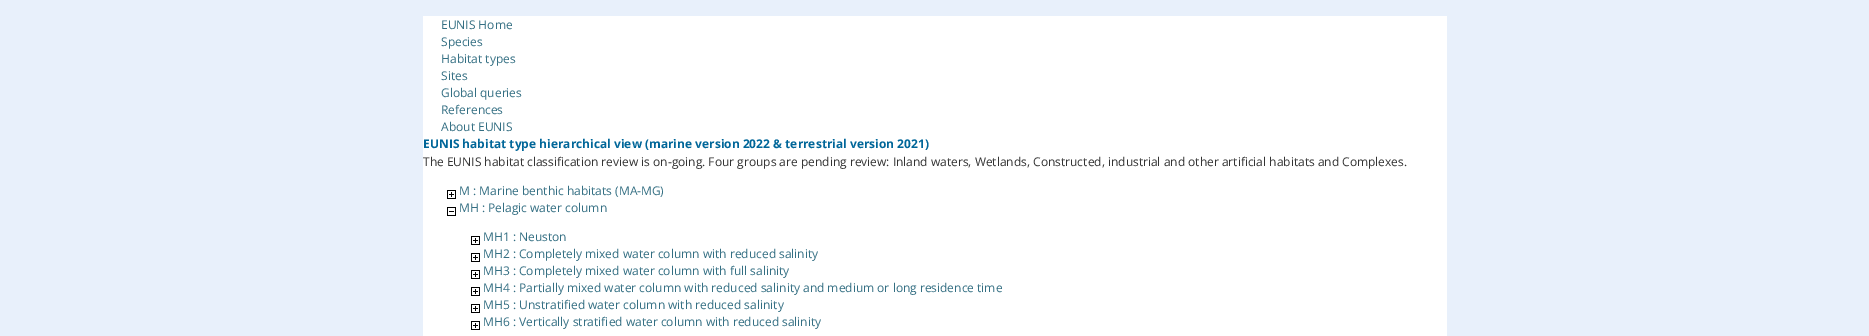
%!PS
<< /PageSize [1869 336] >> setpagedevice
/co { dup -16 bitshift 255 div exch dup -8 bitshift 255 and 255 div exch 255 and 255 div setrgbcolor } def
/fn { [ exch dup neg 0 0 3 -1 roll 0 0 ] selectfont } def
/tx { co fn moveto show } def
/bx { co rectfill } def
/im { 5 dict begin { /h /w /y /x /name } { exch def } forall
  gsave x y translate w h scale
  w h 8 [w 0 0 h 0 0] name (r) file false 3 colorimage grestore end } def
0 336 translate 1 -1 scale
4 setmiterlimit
0 0 1869 336 16#E8F0FB bx
423 16 1024 320 16#FFFFFF bx
(media/1.raw) 447 190 9 9 im
(media/2.raw) 447 207 9 9 im
(media/1.raw) 471 236 9 9 im
(media/1.raw) 471 253 9 9 im
(media/1.raw) 471 270 9 9 im
(media/1.raw) 471 287 9 9 im
(media/1.raw) 471 304 9 9 im
(media/1.raw) 471 321 9 9 im
(EUNIS Home) 441 29 /OpenSans-Regular 12 16#346F83 tx
(Species) 441 46 /OpenSans-Regular 12 16#346F83 tx
(Habitat types) 441 63 /OpenSans-Regular 12 16#346F83 tx
(Sites) 441 80 /OpenSans-Regular 12 16#346F83 tx
(Global queries) 441 97 /OpenSans-Regular 12 16#346F83 tx
(References) 441 114 /OpenSans-Regular 12 16#346F83 tx
(About EUNIS) 441 131 /OpenSans-Regular 12 16#346F83 tx
(EUNIS habitat type hierarchical view \(marine version 2022 & terrestrial version 2021\)) 423 148 /OpenSans-Bold 12 16#006699 tx
(The EUNIS habitat classification review is on-going. Four groups are pending review: Inland waters, Wetlands, Constructed, industrial and other artificial habitats and Complexes.) 423 166 /OpenSans-Regular 12 16#333333 tx
(M : Marine benthic habitats \(MA-MG\)) 459 195 /OpenSans-Regular 12 16#346F83 tx
(MH : Pelagic water column) 459 212 /OpenSans-Regular 12 16#346F83 tx
(MH1 : Neuston) 483 241 /OpenSans-Regular 12 16#346F83 tx
(MH2 : Completely mixed water column with reduced salinity) 483 258 /OpenSans-Regular 12 16#346F83 tx
(MH3 : Completely mixed water column with full salinity) 483 275 /OpenSans-Regular 12 16#346F83 tx
(MH4 : Partially mixed water column with reduced salinity and medium or long residence time) 483 292 /OpenSans-Regular 12 16#346F83 tx
(MH5 : Unstratified water column with reduced salinity) 483 309 /OpenSans-Regular 12 16#346F83 tx
(MH6 : Vertically stratified water column with reduced salinity) 483 326 /OpenSans-Regular 12 16#346F83 tx
showpage
